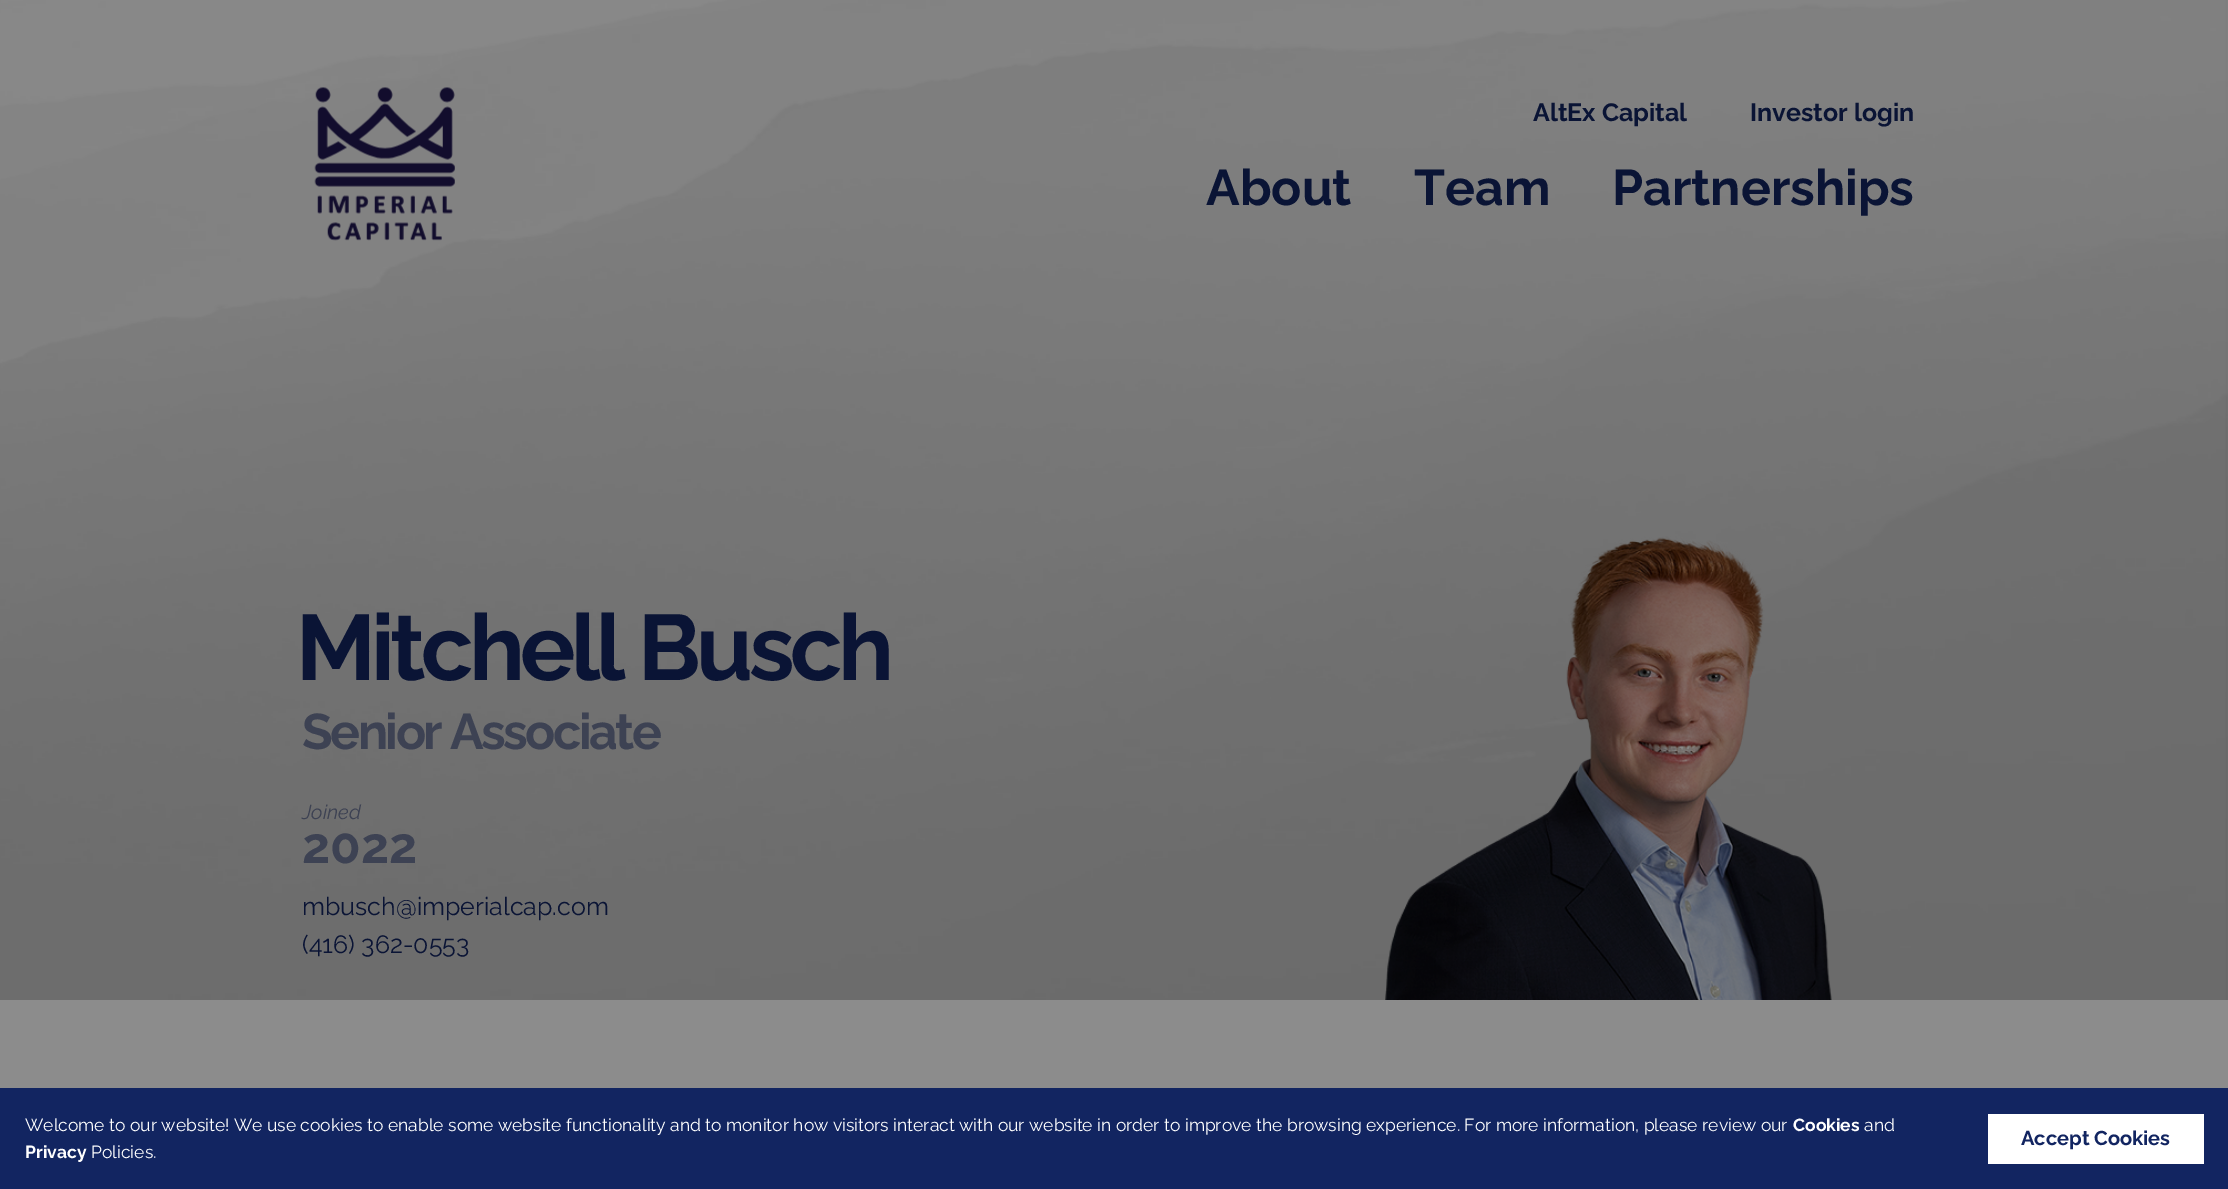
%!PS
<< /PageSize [2228 1189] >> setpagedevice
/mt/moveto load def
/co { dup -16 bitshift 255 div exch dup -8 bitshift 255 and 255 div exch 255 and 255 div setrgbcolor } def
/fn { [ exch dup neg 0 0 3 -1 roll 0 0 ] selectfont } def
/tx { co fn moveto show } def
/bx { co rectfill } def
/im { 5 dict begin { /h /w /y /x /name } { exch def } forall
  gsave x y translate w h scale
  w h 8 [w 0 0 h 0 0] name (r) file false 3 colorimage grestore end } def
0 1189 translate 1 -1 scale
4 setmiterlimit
0 0 2228 1189 16#8C8C8C bx
(media/2.raw) 0 0 2228 1000 im
(media/1.raw) 314 87 141 154 im
(media/3.raw) 1385 536 447 464 im
0 1088 2228 101 16#122561 bx
1988 1114 216 50 16#FFFFFF bx
(AltEx Capital) 1533 121 /Raleway-Bold 25 16#0A1435 tx
(Investor login) 1750 121 /Raleway-Bold 25 16#0A1435 tx
(About) 1206 205 /Raleway-Bold 50 16#0A1435 tx
(Team) 1414 205 /Raleway-Bold 50 16#0A1435 tx
(Partnerships) 1612 205 /Raleway-Bold 50 16#0A1435 tx
/Raleway-Bold 92.5 fn
296 680 mt -4.6 0 (Mitchell Busch) ashow
/Raleway-Bold 50 fn
16#3D4253 co
302 749 mt -2.5 0 (Senior Associate) ashow
(Joined) 302 819 /Raleway-ThinItalic 20 16#3D4253 tx
(2022) 302 863 /Raleway-Bold 50 16#3D4253 tx
(mbusch@imperialcap.com) 302 915 /Raleway-Regular 25 16#0A1435 tx
(\(416\) 362-0553) 302 953 /Raleway-Regular 25 16#0A1435 tx
(Welcome to our website! We use cookies to enable some website functionality and to monitor how visitors interact with our website in order to improve the browsing experience. For more information, please review our) 25 1131 /Raleway-Regular 17.5 16#FFFFFF tx
(Cookies) 1793 1131 /Raleway-Bold 17.5 16#FFFFFF tx
(and) 1864 1131 /Raleway-Regular 17.5 16#FFFFFF tx
(Privacy) 25 1158 /Raleway-Bold 17.5 16#FFFFFF tx
(Policies.) 91 1158 /Raleway-Regular 17.5 16#FFFFFF tx
(Accept Cookies) 2021 1145 /Raleway-Bold 20 16#122561 tx
showpage
